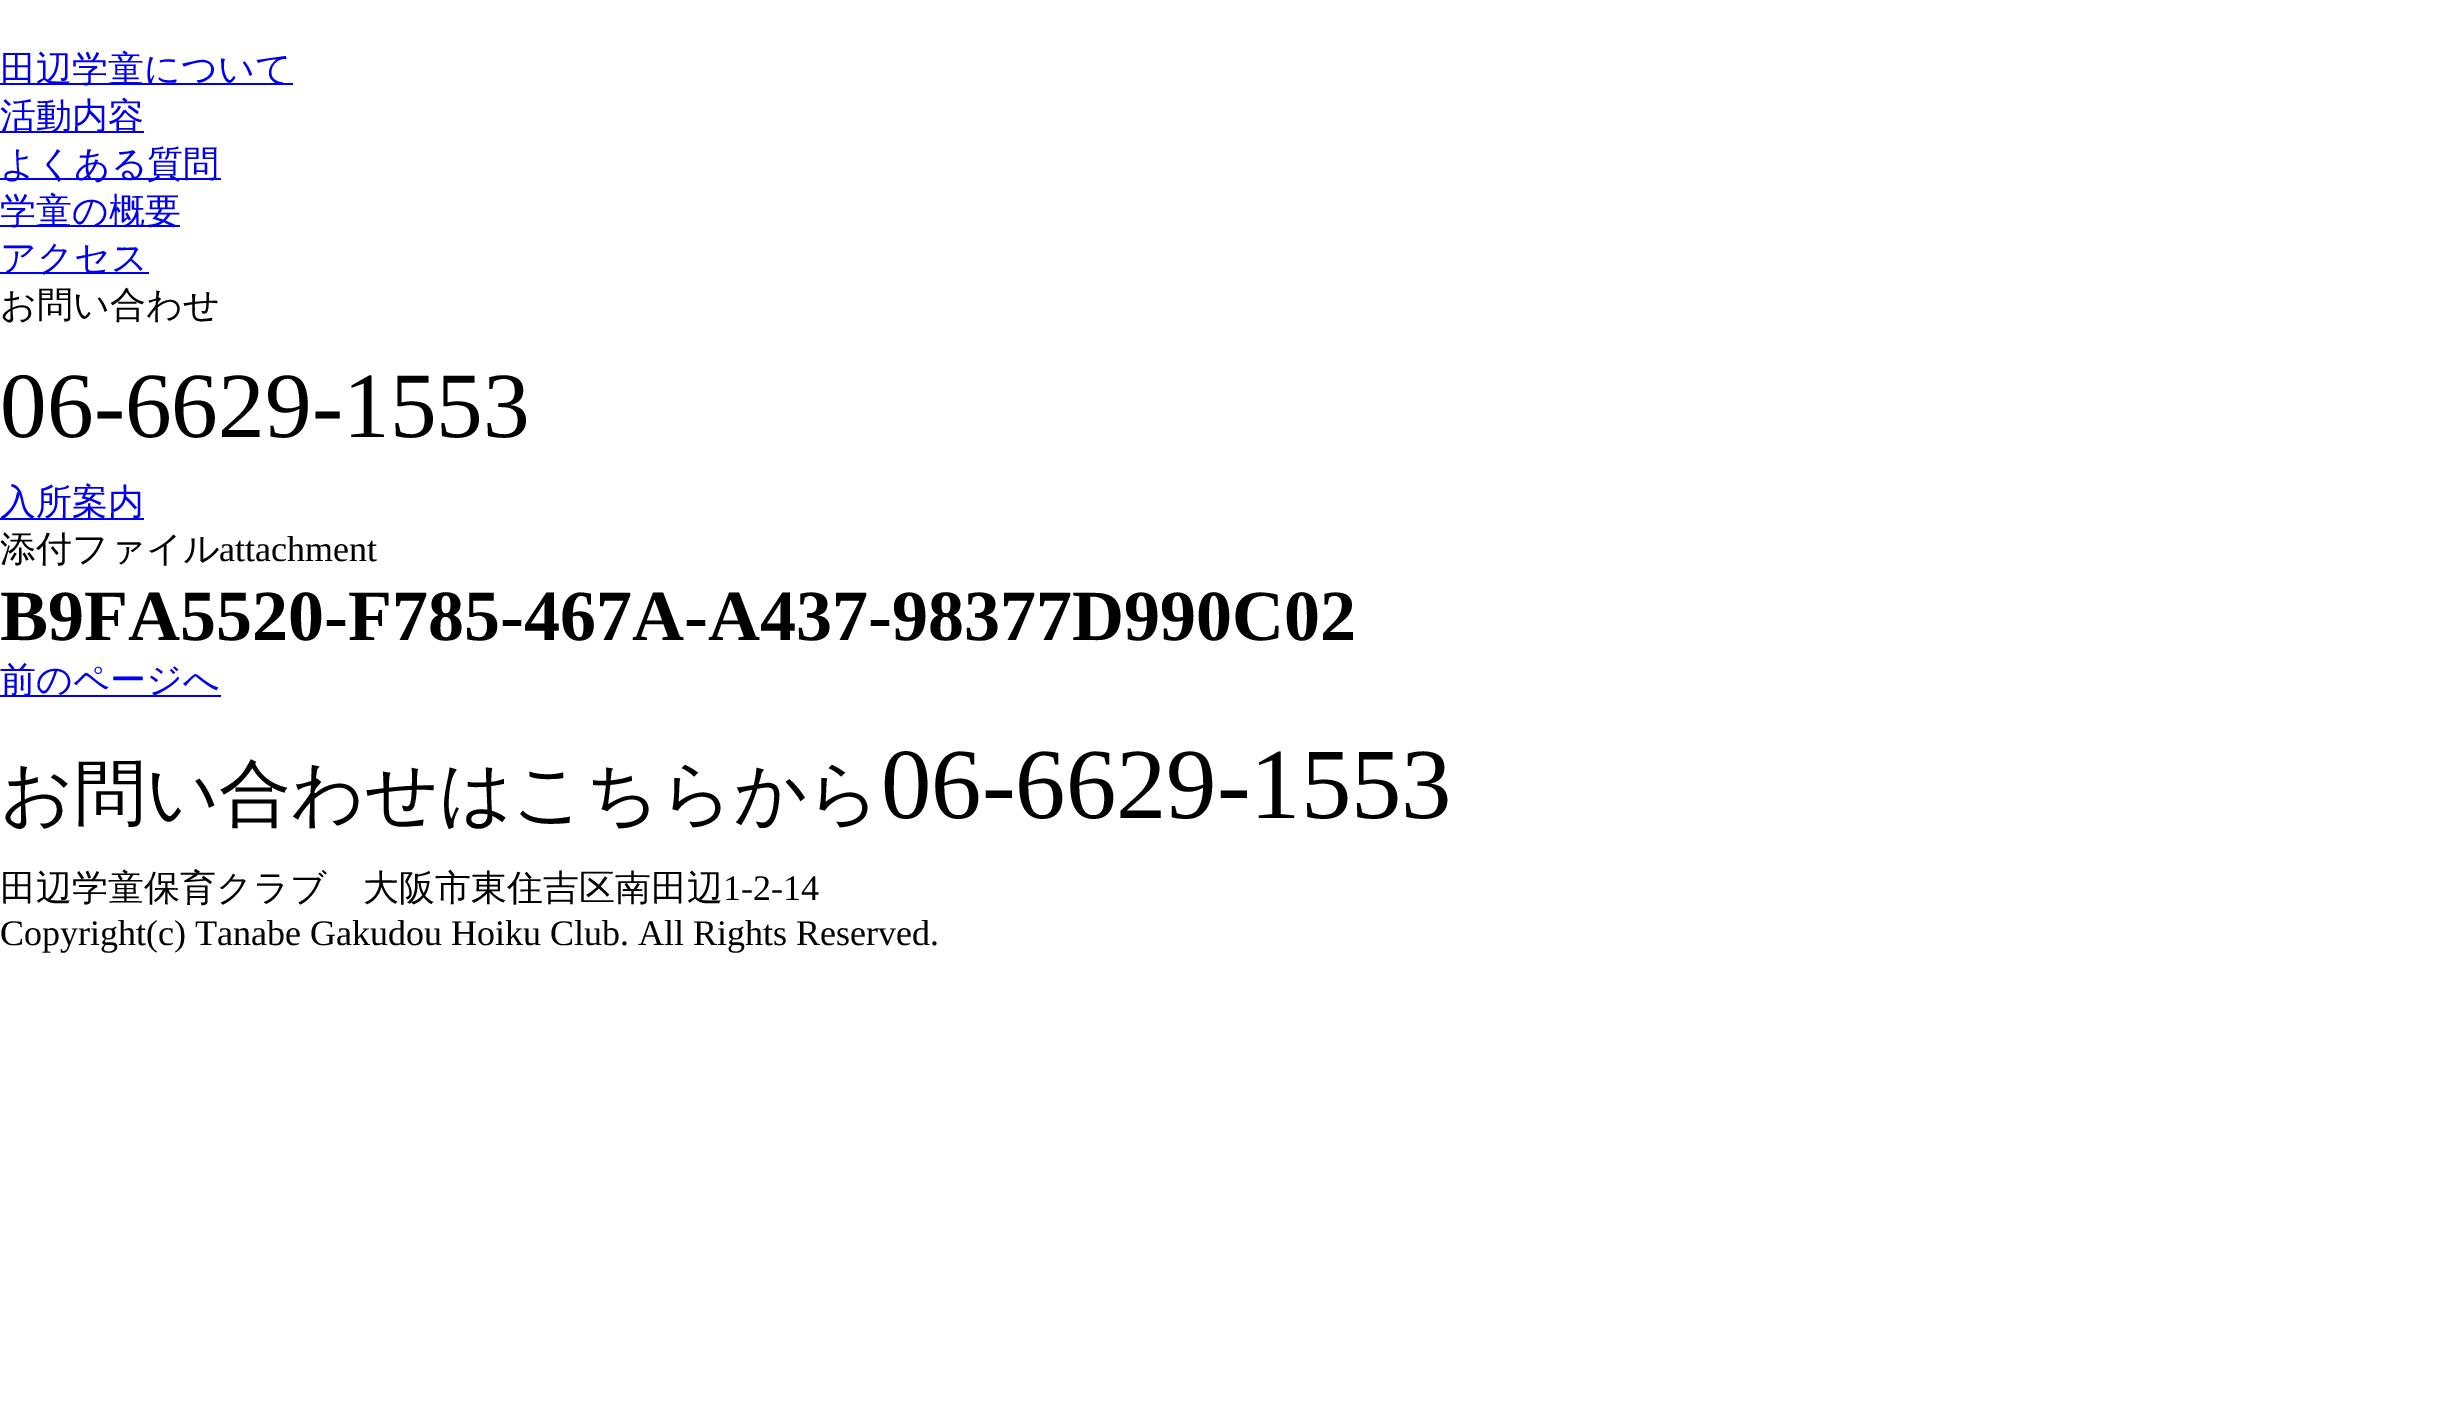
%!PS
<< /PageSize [2460 1416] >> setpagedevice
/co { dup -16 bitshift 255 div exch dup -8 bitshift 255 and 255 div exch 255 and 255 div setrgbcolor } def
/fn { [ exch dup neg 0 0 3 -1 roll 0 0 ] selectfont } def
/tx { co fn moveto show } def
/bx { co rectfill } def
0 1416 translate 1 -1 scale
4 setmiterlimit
0 0 2460 1416 16#FFFFFF bx
0 83 293 2 16#0000EE bx
0 131 144 2 16#0000EE bx
0 178 221 2 16#0000EE bx
0 225 180 2 16#0000EE bx
0 272 149 2 16#0000EE bx
0 518 144 2 16#0000EE bx
0 695 221 2 16#0000EE bx
(田辺学童について) 0 81 /WenQuanYiZenHei-Medium 36 16#0000EE tx
(活動内容) 0 128 /WenQuanYiZenHei-Medium 36 16#0000EE tx
(よくある質問) 0 176 /WenQuanYiZenHei-Medium 36 16#0000EE tx
(学童の概要) 0 223 /WenQuanYiZenHei-Medium 36 16#0000EE tx
(アクセス) 0 270 /WenQuanYiZenHei-Medium 36 16#0000EE tx
(お問い合わせ) 0 317 /WenQuanYiZenHei-Medium 36 16#000000 tx
(06-6629-1553) 0 437 /LiberationSerif-Regular 93.5 16#000000 tx
(入所案内) 0 514 /WenQuanYiZenHei-Medium 36 16#0000EE tx
(添付ファイル) 0 561 /WenQuanYiZenHei-Medium 36 16#000000 tx
(attachment) 219 561 /LiberationSerif-Regular 36 16#000000 tx
(B9FA5520-F785-467A-A437-98377D990C02) 0 640 /LiberationSerif-Bold 72 16#000000 tx
(前のページへ) 0 692 /WenQuanYiZenHei-Medium 36 16#0000EE tx
(お問い合わせはこちらから) 0 818 /WenQuanYiZenHei-Medium 72 16#000000 tx
(06-6629-1553) 881 818 /LiberationSerif-Regular 100.75 16#000000 tx
(田辺学童保育クラブ　大阪市東住吉区南田辺) 0 900 /WenQuanYiZenHei-Medium 36 16#000000 tx
(1-2-14) 723 900 /LiberationSerif-Regular 36 16#000000 tx
(Copyright\(c\) Tanabe Gakudou Hoiku Club. All Rights Reserved.) 0 945 /LiberationSerif-Regular 36 16#000000 tx
showpage
